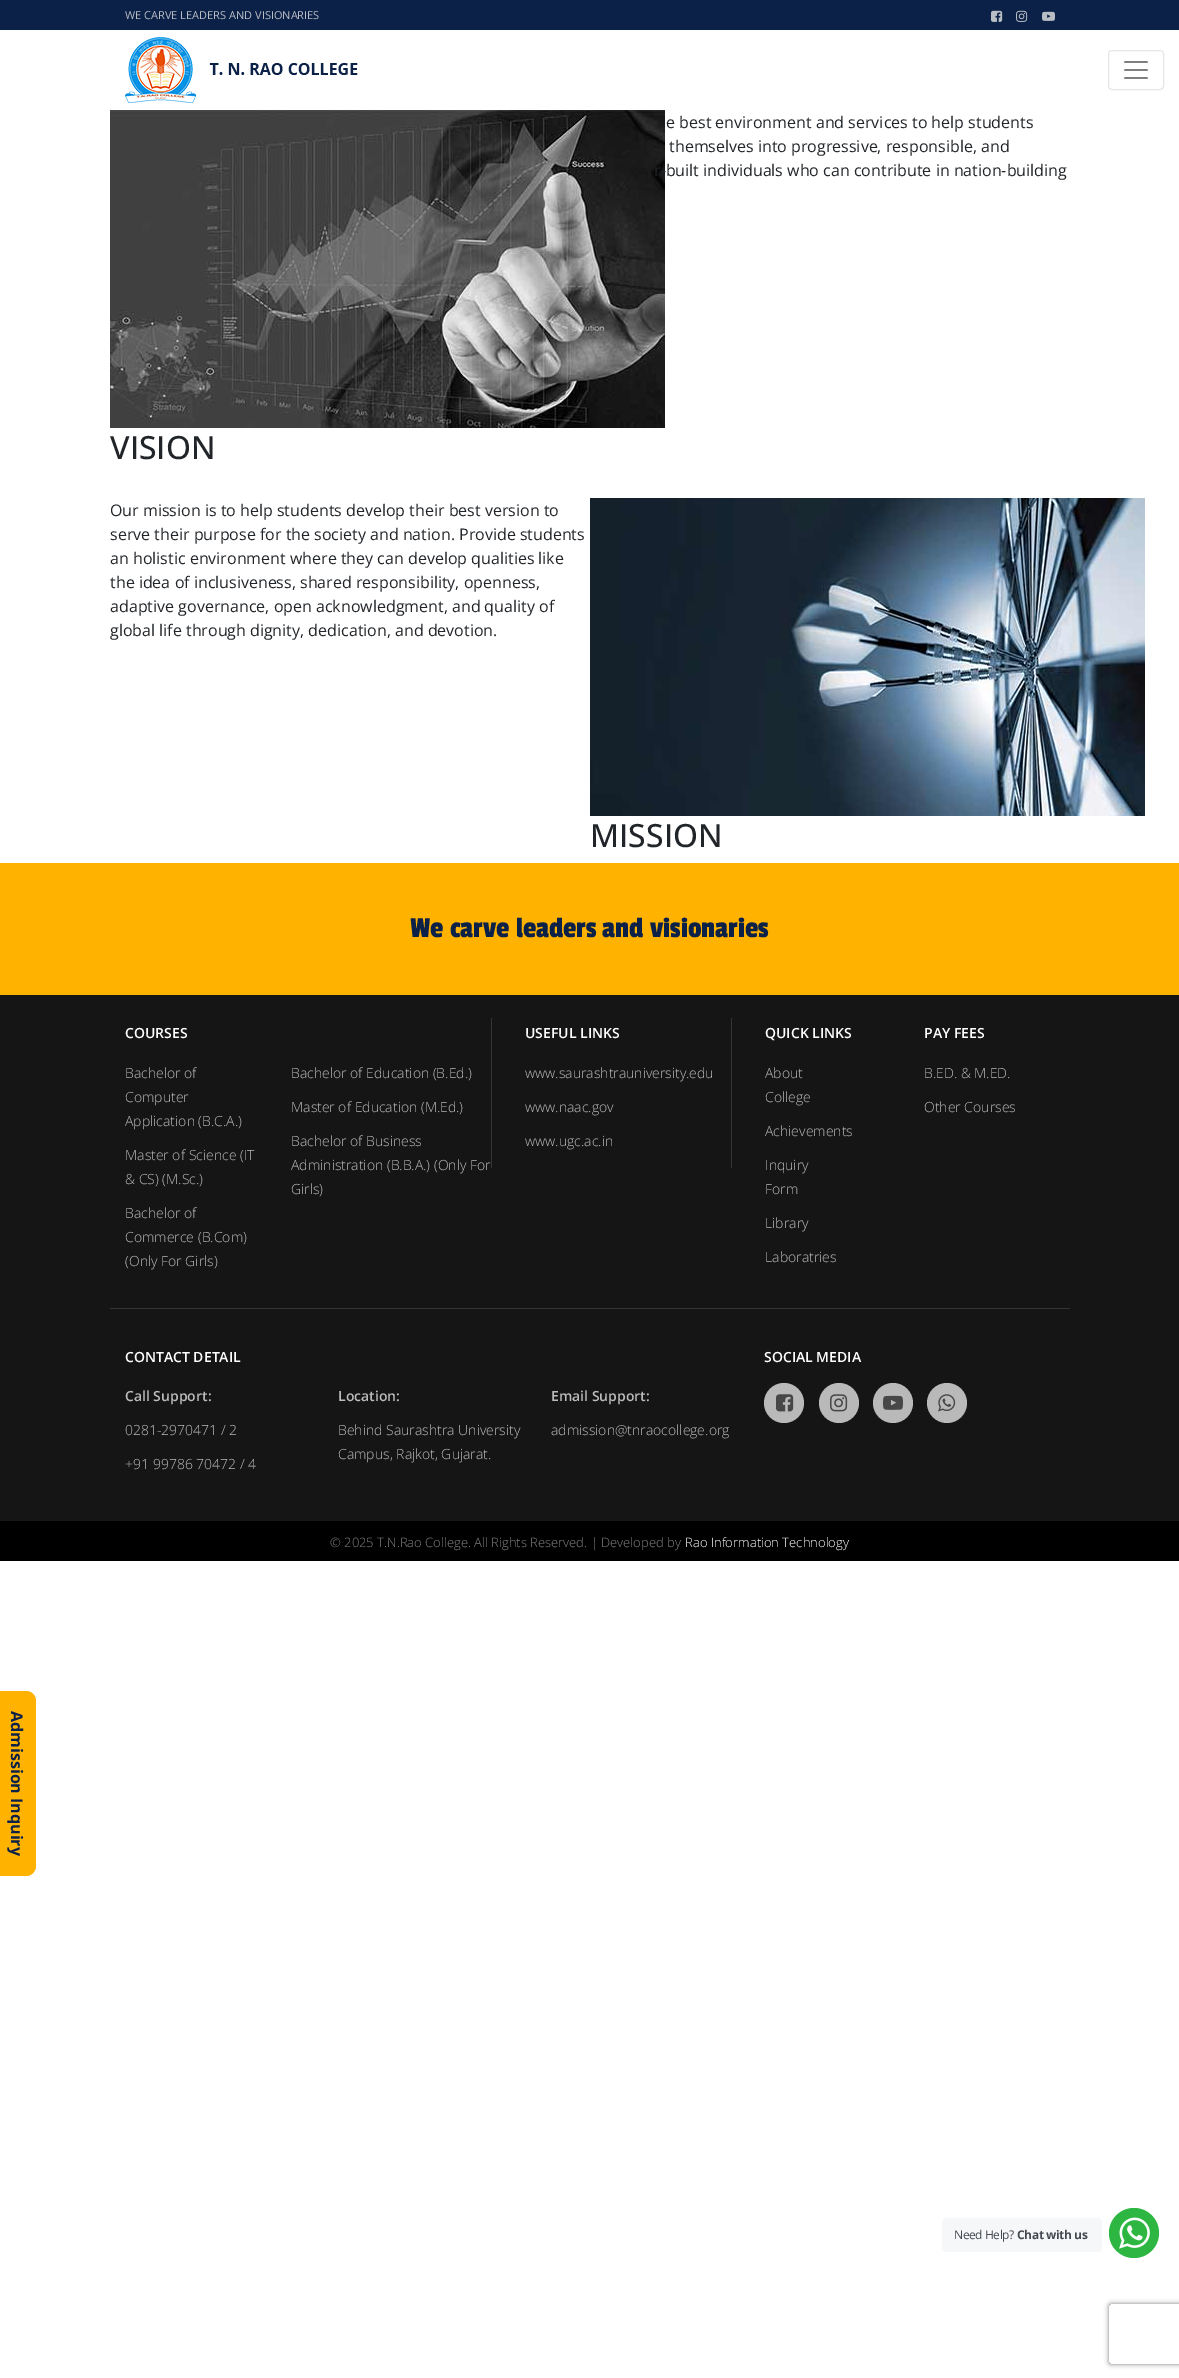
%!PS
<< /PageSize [1179 2378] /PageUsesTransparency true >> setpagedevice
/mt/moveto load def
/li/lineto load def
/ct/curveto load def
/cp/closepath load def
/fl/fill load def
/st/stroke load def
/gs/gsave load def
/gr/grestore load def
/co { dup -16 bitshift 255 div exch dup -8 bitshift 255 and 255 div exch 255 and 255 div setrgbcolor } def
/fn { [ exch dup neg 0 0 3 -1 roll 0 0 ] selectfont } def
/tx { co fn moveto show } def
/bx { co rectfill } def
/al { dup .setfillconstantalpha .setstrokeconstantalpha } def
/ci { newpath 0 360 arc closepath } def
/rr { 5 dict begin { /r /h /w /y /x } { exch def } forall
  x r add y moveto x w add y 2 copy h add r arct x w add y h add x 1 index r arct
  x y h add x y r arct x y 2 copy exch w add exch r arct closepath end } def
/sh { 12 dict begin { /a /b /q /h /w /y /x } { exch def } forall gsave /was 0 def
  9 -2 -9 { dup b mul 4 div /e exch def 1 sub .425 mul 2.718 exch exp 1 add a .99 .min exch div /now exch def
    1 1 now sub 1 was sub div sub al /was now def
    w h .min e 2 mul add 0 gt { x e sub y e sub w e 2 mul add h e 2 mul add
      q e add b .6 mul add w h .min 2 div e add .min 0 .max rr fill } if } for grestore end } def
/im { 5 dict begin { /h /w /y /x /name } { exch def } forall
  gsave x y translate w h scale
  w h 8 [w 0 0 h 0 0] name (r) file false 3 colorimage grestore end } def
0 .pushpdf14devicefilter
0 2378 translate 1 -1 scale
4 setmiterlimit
0 0 1179 2378 16#FFFFFF bx
0 0 1179 30 16#0C2147 bx
(media/1.raw) 991 10 12 12 im
(media/2.raw) 1016 10 12 12 im
(media/3.raw) 1042 11 13 10 im
(media/4.raw) 125 37 233 66 im
16#E6E6E6 co
1108.5 50.5 55 39 3.5 rr st
(media/5.raw) 1124 61 24 18 im
(media/6.raw) 110 110 555 318 im
(media/7.raw) 590 498 555 318 im
0 863 1179 132 16#FFB300 bx
0 995 1179 526 16#151515 bx
491 1018 1 150 16#353535 bx
731 1018 1 150 16#353535 bx
110 1308 960 1 16#353535 bx
16#B9B9B9 co
784 1403 20 ci fl
(media/8.raw) 776 1394 18 18 im
839 1403 20 ci fl
(media/9.raw) 830 1394 18 18 im
893 1403 20 ci fl
(media/10.raw) 883 1395 20 15 im
947 1403 20 ci fl
(media/11.raw) 938 1394 18 18 im
0 1521 1179 40 16#000000 bx
16#FFB300 co
36 1701 mt 36 1866 li 36 1871 32 1876 26 1876 ct -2 1876 li -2 1691 li 26 1691 li 32 1691 36 1696 36 1701 ct cp fl
16#F5F7F9 co
942 2218 160 34 4 rr fl
16#2DB742 co
1134 2233 25 ci fl
(media/12.raw) 1119 2217 31 32 im
gs
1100 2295 mt 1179 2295 li 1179 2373 li 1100 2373 li cp 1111 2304 mt 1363 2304 li 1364 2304 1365 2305 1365 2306 ct 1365 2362 li 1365 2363 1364 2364 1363 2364 ct 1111 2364 li 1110 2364 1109 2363 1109 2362 ct 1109 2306 li 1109 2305 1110 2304 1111 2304 ct cp eoclip newpath
16#808080 co
1109 2304 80 60 2 2.5 1 sh
gr
(WE CARVE LEADERS AND VISIONARIES) 125 19 /OpenSans-Regular 11 16#B9BEC5 tx
(e best environment and services to help students) 666 128 /OpenSans-Regular 16 16#212529 tx
(themselves into progressive, responsible, and) 669 152 /OpenSans-Regular 16 16#212529 tx
(r-built individuals who can contribute in nation-building) 654 176 /OpenSans-Regular 16 16#212529 tx
(VISION) 110 459 /OpenSans-Medium 32 16#212529 tx
(Our mission is to help students develop their best version to) 110 516 /OpenSans-Regular 16 16#212529 tx
(serve their purpose for the society and nation. Provide students) 110 540 /OpenSans-Regular 16 16#212529 tx
(an holistic environment where they can develop qualities like) 110 564 /OpenSans-Regular 16 16#212529 tx
(the idea of inclusiveness, shared responsibility, openness,) 110 588 /OpenSans-Regular 16 16#212529 tx
(adaptive governance, open acknowledgment, and quality of) 110 612 /OpenSans-Regular 16 16#212529 tx
(global life through dignity, dedication, and devotion.) 110 636 /OpenSans-Regular 16 16#212529 tx
(MISSION) 590 847 /OpenSans-Medium 32 16#212529 tx
(We carve leaders and visionaries) 410 937 /PassionOne-Regular 30 16#0C2147 tx
(COURSES) 125 1038 /OpenSans-SemiBold 14 16#FFFFFF tx
(Bachelor of) 125 1078 /OpenSans-Light 14 16#BCBCBC tx
(Computer) 125 1102 /OpenSans-Light 14 16#BCBCBC tx
(Application \(B.C.A.\)) 125 1126 /OpenSans-Light 14 16#BCBCBC tx
(Master of Science \(IT) 125 1160 /OpenSans-Light 14 16#BCBCBC tx
(& CS\) \(M.Sc.\)) 125 1184 /OpenSans-Light 14 16#BCBCBC tx
(Bachelor of) 125 1218 /OpenSans-Light 14 16#BCBCBC tx
(Commerce \(B.Com\)) 125 1242 /OpenSans-Light 14 16#BCBCBC tx
(\(Only For Girls\)) 125 1266 /OpenSans-Light 14 16#BCBCBC tx
(Bachelor of Education \(B.Ed.\)) 291 1078 /OpenSans-Light 14 16#BCBCBC tx
(Master of Education \(M.Ed.\)) 291 1112 /OpenSans-Light 14 16#BCBCBC tx
(Bachelor of Business) 291 1146 /OpenSans-Light 14 16#BCBCBC tx
(Administration \(B.B.A.\) \(Only For) 291 1170 /OpenSans-Light 14 16#BCBCBC tx
(Girls\)) 291 1194 /OpenSans-Light 14 16#BCBCBC tx
(USEFUL LINKS) 525 1038 /OpenSans-SemiBold 14 16#FFFFFF tx
(www.saurashtrauniversity.edu) 525 1078 /OpenSans-Light 14 16#BCBCBC tx
(www.naac.gov) 525 1112 /OpenSans-Light 14 16#BCBCBC tx
(www.ugc.ac.in) 525 1146 /OpenSans-Light 14 16#BCBCBC tx
(QUICK LINKS) 765 1038 /OpenSans-SemiBold 14 16#FFFFFF tx
(About) 765 1078 /OpenSans-Light 14 16#BCBCBC tx
(College) 765 1102 /OpenSans-Light 14 16#BCBCBC tx
(Achievements) 765 1136 /OpenSans-Light 14 16#BCBCBC tx
(Inquiry) 765 1170 /OpenSans-Light 14 16#BCBCBC tx
(Form) 765 1194 /OpenSans-Light 14 16#BCBCBC tx
(Library) 765 1228 /OpenSans-Light 14 16#BCBCBC tx
(Laboratries) 765 1262 /OpenSans-Light 14 16#BCBCBC tx
(PAY FEES) 924 1038 /OpenSans-SemiBold 14 16#FFFFFF tx
(B.ED. & M.ED.) 924 1078 /OpenSans-Light 14 16#BCBCBC tx
(Other Courses) 924 1112 /OpenSans-Light 14 16#BCBCBC tx
(CONTACT DETAIL) 125 1362 /OpenSans-SemiBold 14 16#FFFFFF tx
(Call Support:) 125 1401 /OpenSans-SemiBold 14 16#BCBCBC tx
(0281-2970471 / 2) 125 1435 /OpenSans-Light 14 16#BCBCBC tx
(+91 99786 70472 / 4) 125 1469 /OpenSans-Light 14 16#BCBCBC tx
(Location:) 338 1401 /OpenSans-SemiBold 14 16#BCBCBC tx
(Behind Saurashtra University) 338 1435 /OpenSans-Light 14 16#BCBCBC tx
(Campus, Rajkot, Gujarat.) 338 1459 /OpenSans-Light 14 16#BCBCBC tx
(Email Support:) 551 1401 /OpenSans-SemiBold 14 16#BCBCBC tx
(admission@tnraocollege.org) 551 1435 /OpenSans-Light 14 16#BCBCBC tx
(SOCIAL MEDIA) 764 1362 /OpenSans-SemiBold 14 16#FFFFFF tx
(© 2025 T.N.Rao College. All Rights Reserved. | Developed by) 330 1547 /OpenSans-Light 13 16#838384 tx
(Rao Information Technology) 685 1547 /OpenSans-Light 13 16#FFFFFF tx
/OpenSans-Bold 16 fn
16#0C2147 co
gs 11 1711 translate 90 rotate 0 0 mt (Admission Inquiry) show gr
/OpenSans-Regular 12 fn
16#43474E co
954 2239 mt -.4 0 (Need Help?) ashow
/OpenSans-Bold 12 fn
1017 2239 mt -.4 0 (Chat with us) ashow
.poppdf14devicefilter showpage
